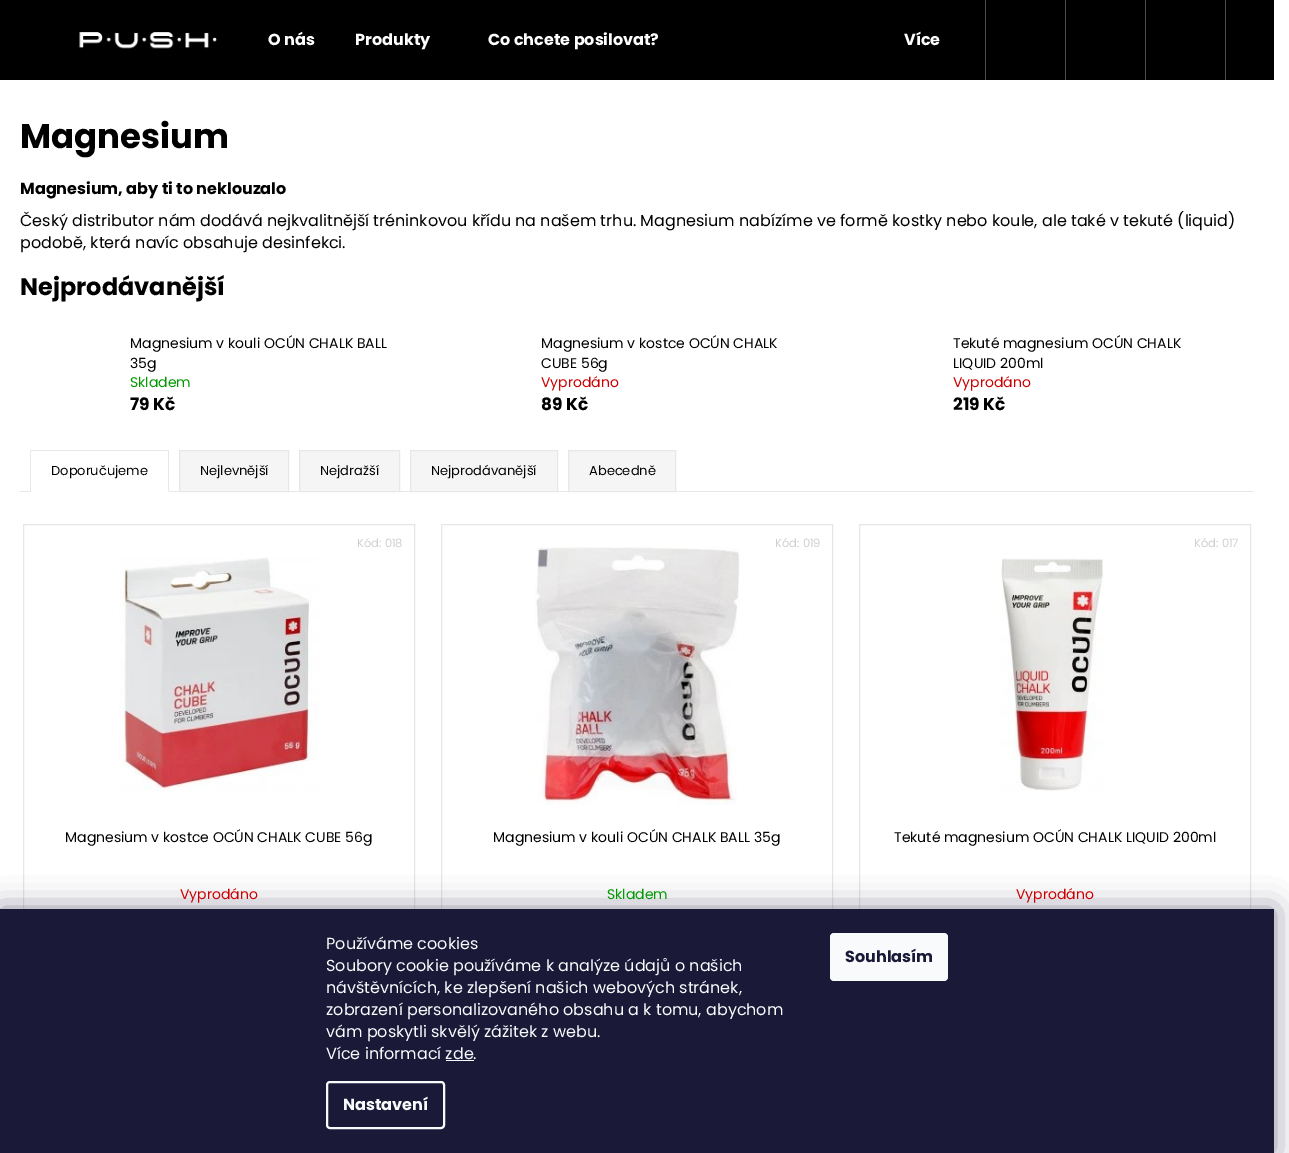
%!PS
<< /PageSize [1289 1153] /PageUsesTransparency true >> setpagedevice
/mt/moveto load def
/li/lineto load def
/cp/closepath load def
/fl/fill load def
/st/stroke load def
/gs/gsave load def
/gr/grestore load def
/lw/setlinewidth load def
/co { dup -16 bitshift 255 div exch dup -8 bitshift 255 and 255 div exch 255 and 255 div setrgbcolor } def
/fn { [ exch dup neg 0 0 3 -1 roll 0 0 ] selectfont } def
/tx { co fn moveto show } def
/bx { co rectfill } def
/al { dup .setfillconstantalpha .setstrokeconstantalpha } def
/rr { 5 dict begin { /r /h /w /y /x } { exch def } forall
  x r add y moveto x w add y 2 copy h add r arct x w add y h add x 1 index r arct
  x y h add x y r arct x y 2 copy exch w add exch r arct closepath end } def
/sh { 12 dict begin { /a /b /q /h /w /y /x } { exch def } forall gsave /was 0 def
  9 -2 -9 { dup b mul 4 div /e exch def 1 sub .425 mul 2.718 exch exp 1 add a .99 .min exch div /now exch def
    1 1 now sub 1 was sub div sub al /was now def
    w h .min e 2 mul add 0 gt { x e sub y e sub w e 2 mul add h e 2 mul add
      q e add b .6 mul add w h .min 2 div e add .min 0 .max rr fill } if } for grestore end } def
/im { 5 dict begin { /h /w /y /x /name } { exch def } forall
  gsave x y translate w h scale
  w h 8 [w 0 0 h 0 0] name (r) file false 3 colorimage grestore end } def
0 .pushpdf14devicefilter
0 1153 translate 1 -1 scale
4 setmiterlimit
0 0 1289 1153 16#FFFFFF bx
0 0 1274 80 16#000000 bx
(media/1.raw) 79 32 138 17 im
1225 0 1 80 16#4D4D4D bx
985 0 1 80 16#4D4D4D bx
1065 0 1 80 16#4D4D4D bx
1145 0 1 80 16#4D4D4D bx
20 491 1234 1 16#E7E7E7 bx
30 450 139 1 16#E7E7E7 bx
168 450 1 42 16#E7E7E7 bx
30 491 139 1 16#FFFFFF bx
30 450 1 42 16#E7E7E7 bx
16#F5F5F5 co
179.5 450.5 mt 288.5 450.5 li 288.5 491.5 li 179.5 491.5 li cp gs fl gr
16#E7E7E7 co
st
16#F5F5F5 co
299.5 450.5 mt 399.5 450.5 li 399.5 491.5 li 299.5 491.5 li cp gs fl gr
16#E7E7E7 co
st
16#F5F5F5 co
410.5 450.5 mt 557.5 450.5 li 557.5 491.5 li 410.5 491.5 li cp gs fl gr
16#E7E7E7 co
st
16#F5F5F5 co
568.5 450.5 mt 675.5 450.5 li 675.5 491.5 li 568.5 491.5 li cp gs fl gr
16#E7E7E7 co
st
16#E6E6E6 co
23.5 524.5 391 574 rectstroke
(media/2.raw) 119 557 200 234 im
441.5 524.5 391 574 rectstroke
(media/3.raw) 534 547 206 258 im
859.5 524.5 391 574 rectstroke
(media/4.raw) 1001 558 103 233 im
16#1B1939 co
0 909 1274 244 0 15 .5 sh
0 909 1274 244 16#1A1937 bx
446 1060 28 1 16#F8FAFB bx
2 lw
327 1082 117 46 3 rr st
830 933 118 48 4 rr fl
(O nás) 268 45 /Poppins-Bold 16 16#FFFFFF tx
(Produkty) 355 45 /Poppins-Bold 16 16#FFFFFF tx
(Co chcete posilovat?) 488 45 /Poppins-Bold 16 16#FFFFFF tx
(Více) 904 45 /Poppins-Bold 16 16#FFFFFF tx
(Magnesium) 20 148 /Poppins-Bold 34 16#000000 tx
(Magnesium, aby ti to neklouzalo) 20 194 /Poppins-Bold 16 16#000000 tx
(Český distributor nám dodává nejkvalitnější tréninkovou křídu na našem trhu. Magnesium nabízíme ve formě kostky nebo koule, ale také v tekuté \(liquid\)) 20 226 /Poppins-Regular 16 16#000000 tx
(podobě, která navíc obsahuje desinfekci.) 20 248 /Poppins-Regular 16 16#000000 tx
(Nejprodávanější) 20 295 /Poppins-Bold 24 16#000000 tx
(Magnesium v kouli OCÚN CHALK BALL) 130 348 /Poppins-Regular 14 16#000000 tx
(35g) 130 368 /Poppins-Regular 14 16#000000 tx
(Skladem) 130 387 /Poppins-Regular 14 16#009901 tx
(79 Kč) 130 410 /Poppins-Bold 17 16#000000 tx
(Magnesium v kostce OCÚN CHALK) 541 348 /Poppins-Regular 14 16#000000 tx
(CUBE 56g) 541 368 /Poppins-Regular 14 16#000000 tx
(Vyprodáno) 541 387 /Poppins-Regular 14 16#CB0000 tx
(89 Kč) 541 410 /Poppins-Bold 17 16#000000 tx
(Tekuté magnesium OCÚN CHALK) 953 348 /Poppins-Regular 14 16#000000 tx
(LIQUID 200ml) 953 368 /Poppins-Regular 14 16#000000 tx
(Vyprodáno) 953 387 /Poppins-Regular 14 16#CB0000 tx
(219 Kč) 953 410 /Poppins-Bold 17 16#000000 tx
(Doporučujeme) 51 475 /Poppins-Regular 13 16#000000 tx
(Nejlevnější) 200 475 /Poppins-Regular 13 16#000000 tx
(Nejdražší) 320 475 /Poppins-Regular 13 16#000000 tx
(Nejprodávanější) 431 475 /Poppins-Regular 13 16#000000 tx
(Abecedně) 589 475 /Poppins-Regular 13 16#000000 tx
(Kód: 018) 357 547 /Poppins-Regular 11.5 16#CFCFCF tx
(Magnesium v kostce OCÚN CHALK CUBE 56g) 65 842 /Poppins-Regular 14 16#000000 tx
(Vyprodáno) 180 899 /Poppins-Regular 14 16#CB0000 tx
(Kód: 019) 775 547 /Poppins-Regular 11.5 16#CFCFCF tx
(Magnesium v kouli OCÚN CHALK BALL 35g) 493 842 /Poppins-Regular 14 16#000000 tx
(Skladem) 607 899 /Poppins-Regular 14 16#009901 tx
(Kód: 017) 1194 547 /Poppins-Regular 11.5 16#CFCFCF tx
(Tekuté magnesium OCÚN CHALK LIQUID 200ml) 894 842 /Poppins-Regular 14 16#000000 tx
(Vyprodáno) 1016 899 /Poppins-Regular 14 16#CB0000 tx
(Používáme cookies) 326 949 /Poppins-Regular 16 16#F8FAFB tx
(Soubory cookie používáme k analýze údajů o našich) 326 971 /Poppins-Regular 16 16#F8FAFB tx
(návštěvnících, ke zlepšení našich webových stránek,) 326 993 /Poppins-Regular 16 16#F8FAFB tx
(zobrazení personalizovaného obsahu a k tomu, abychom) 326 1015 /Poppins-Regular 16 16#F8FAFB tx
(vám poskytli skvělý zážitek z webu.) 326 1037 /Poppins-Regular 16 16#F8FAFB tx
(Více informací zde.) 326 1059 /Poppins-Regular 16 16#F8FAFB tx
(Nastavení) 343 1110 /Poppins-Bold 16 16#F8FAFB tx
(Souhlasím) 845 962 /Poppins-Bold 16 16#1A1937 tx
.poppdf14devicefilter showpage
